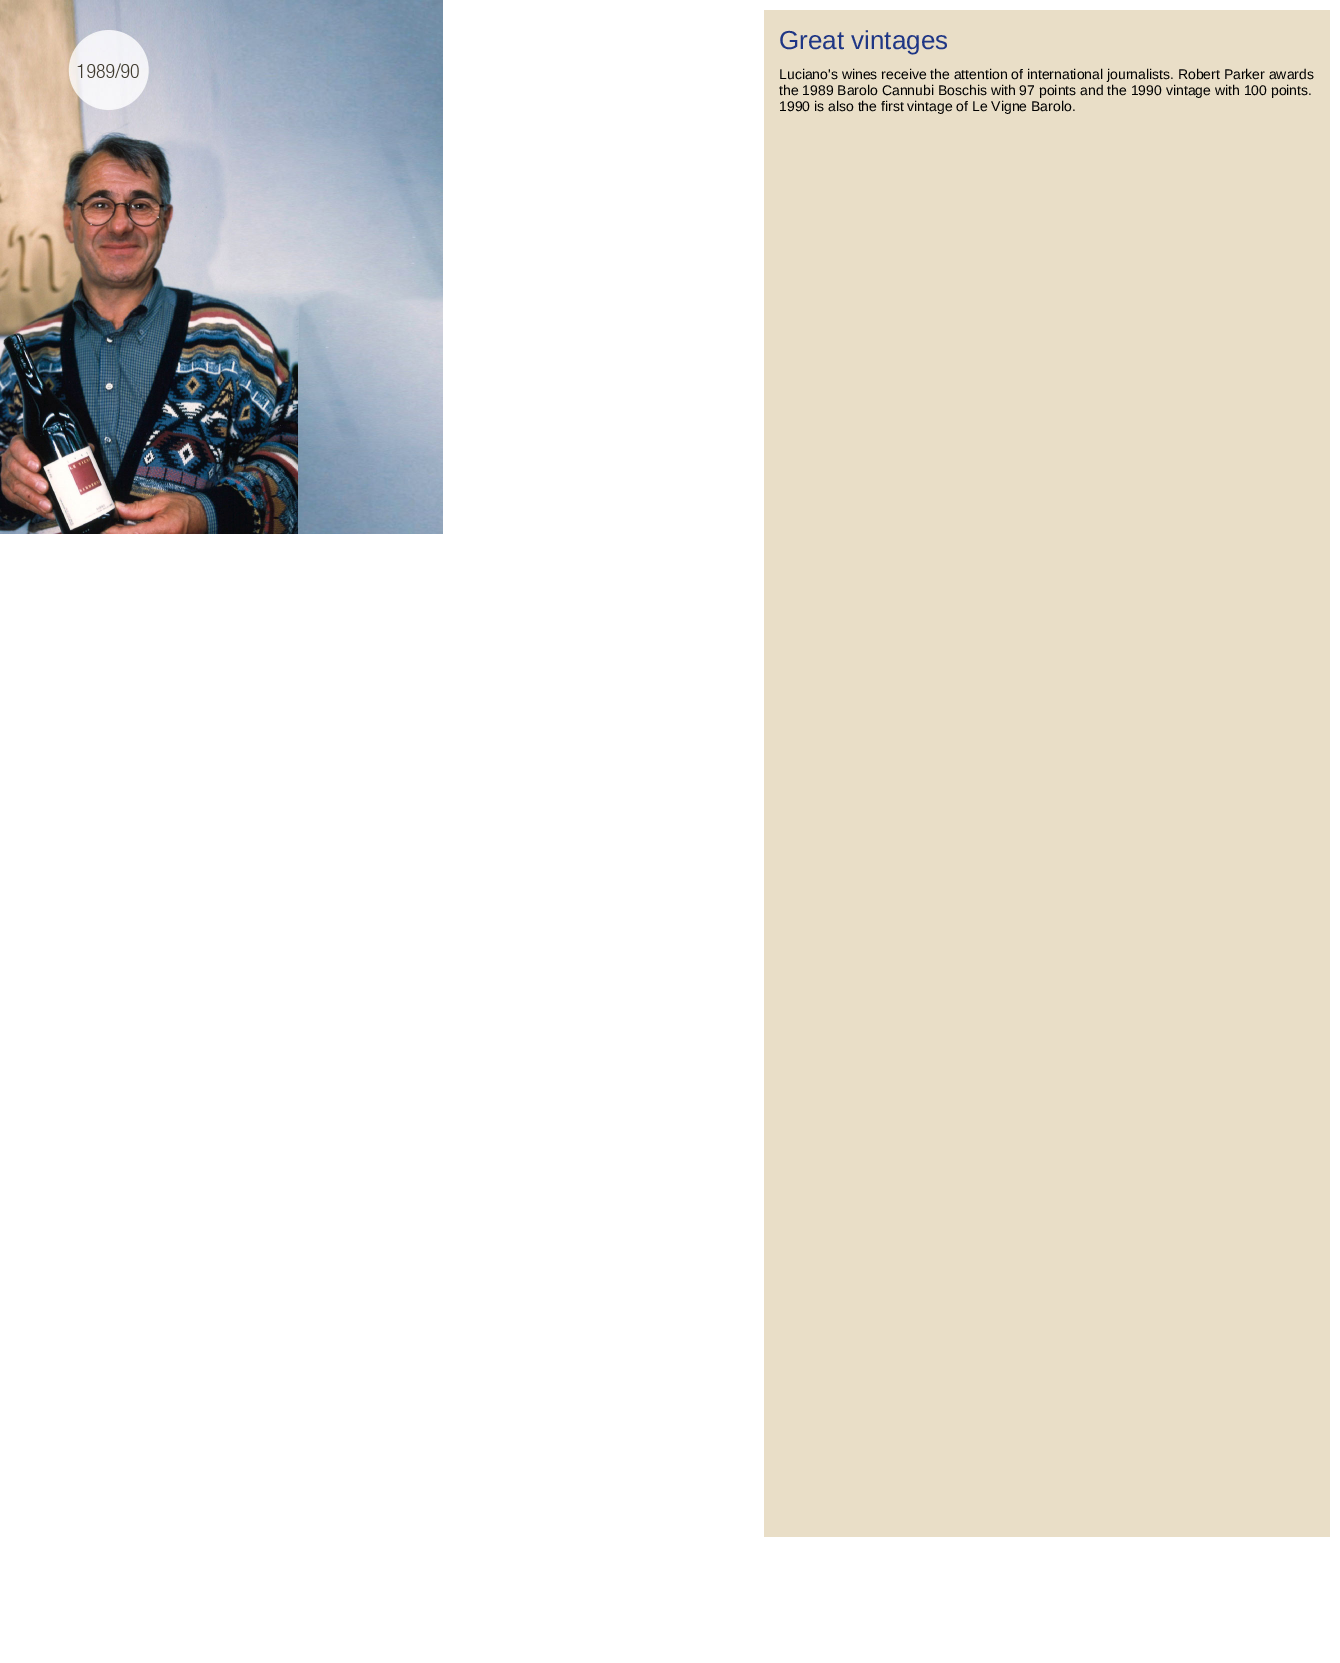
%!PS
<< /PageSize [1340 1663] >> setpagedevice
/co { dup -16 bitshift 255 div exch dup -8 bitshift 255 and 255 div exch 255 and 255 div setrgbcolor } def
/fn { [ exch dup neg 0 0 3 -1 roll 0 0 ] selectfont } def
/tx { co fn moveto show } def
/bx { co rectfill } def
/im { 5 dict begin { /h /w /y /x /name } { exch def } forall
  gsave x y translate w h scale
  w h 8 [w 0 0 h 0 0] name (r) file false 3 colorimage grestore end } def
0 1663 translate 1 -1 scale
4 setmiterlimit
0 0 1340 1663 16#FFFFFF bx
(media/1.raw) 0 0 443 534 im
764 10 566 1527 16#E9DEC7 bx
(Great vintages) 779 49 /LiberationSans-Regular 26 16#1F3685 tx
(Luciano's wines receive the attention of international journalists. Robert Parker awards) 779 79 /LiberationSans-Regular 14 16#000000 tx
(the 1989 Barolo Cannubi Boschis with 97 points and the 1990 vintage with 100 points.) 779 95 /LiberationSans-Regular 14 16#000000 tx
(1990 is also the first vintage of Le Vigne Barolo.) 779 111 /LiberationSans-Regular 14 16#000000 tx
showpage
